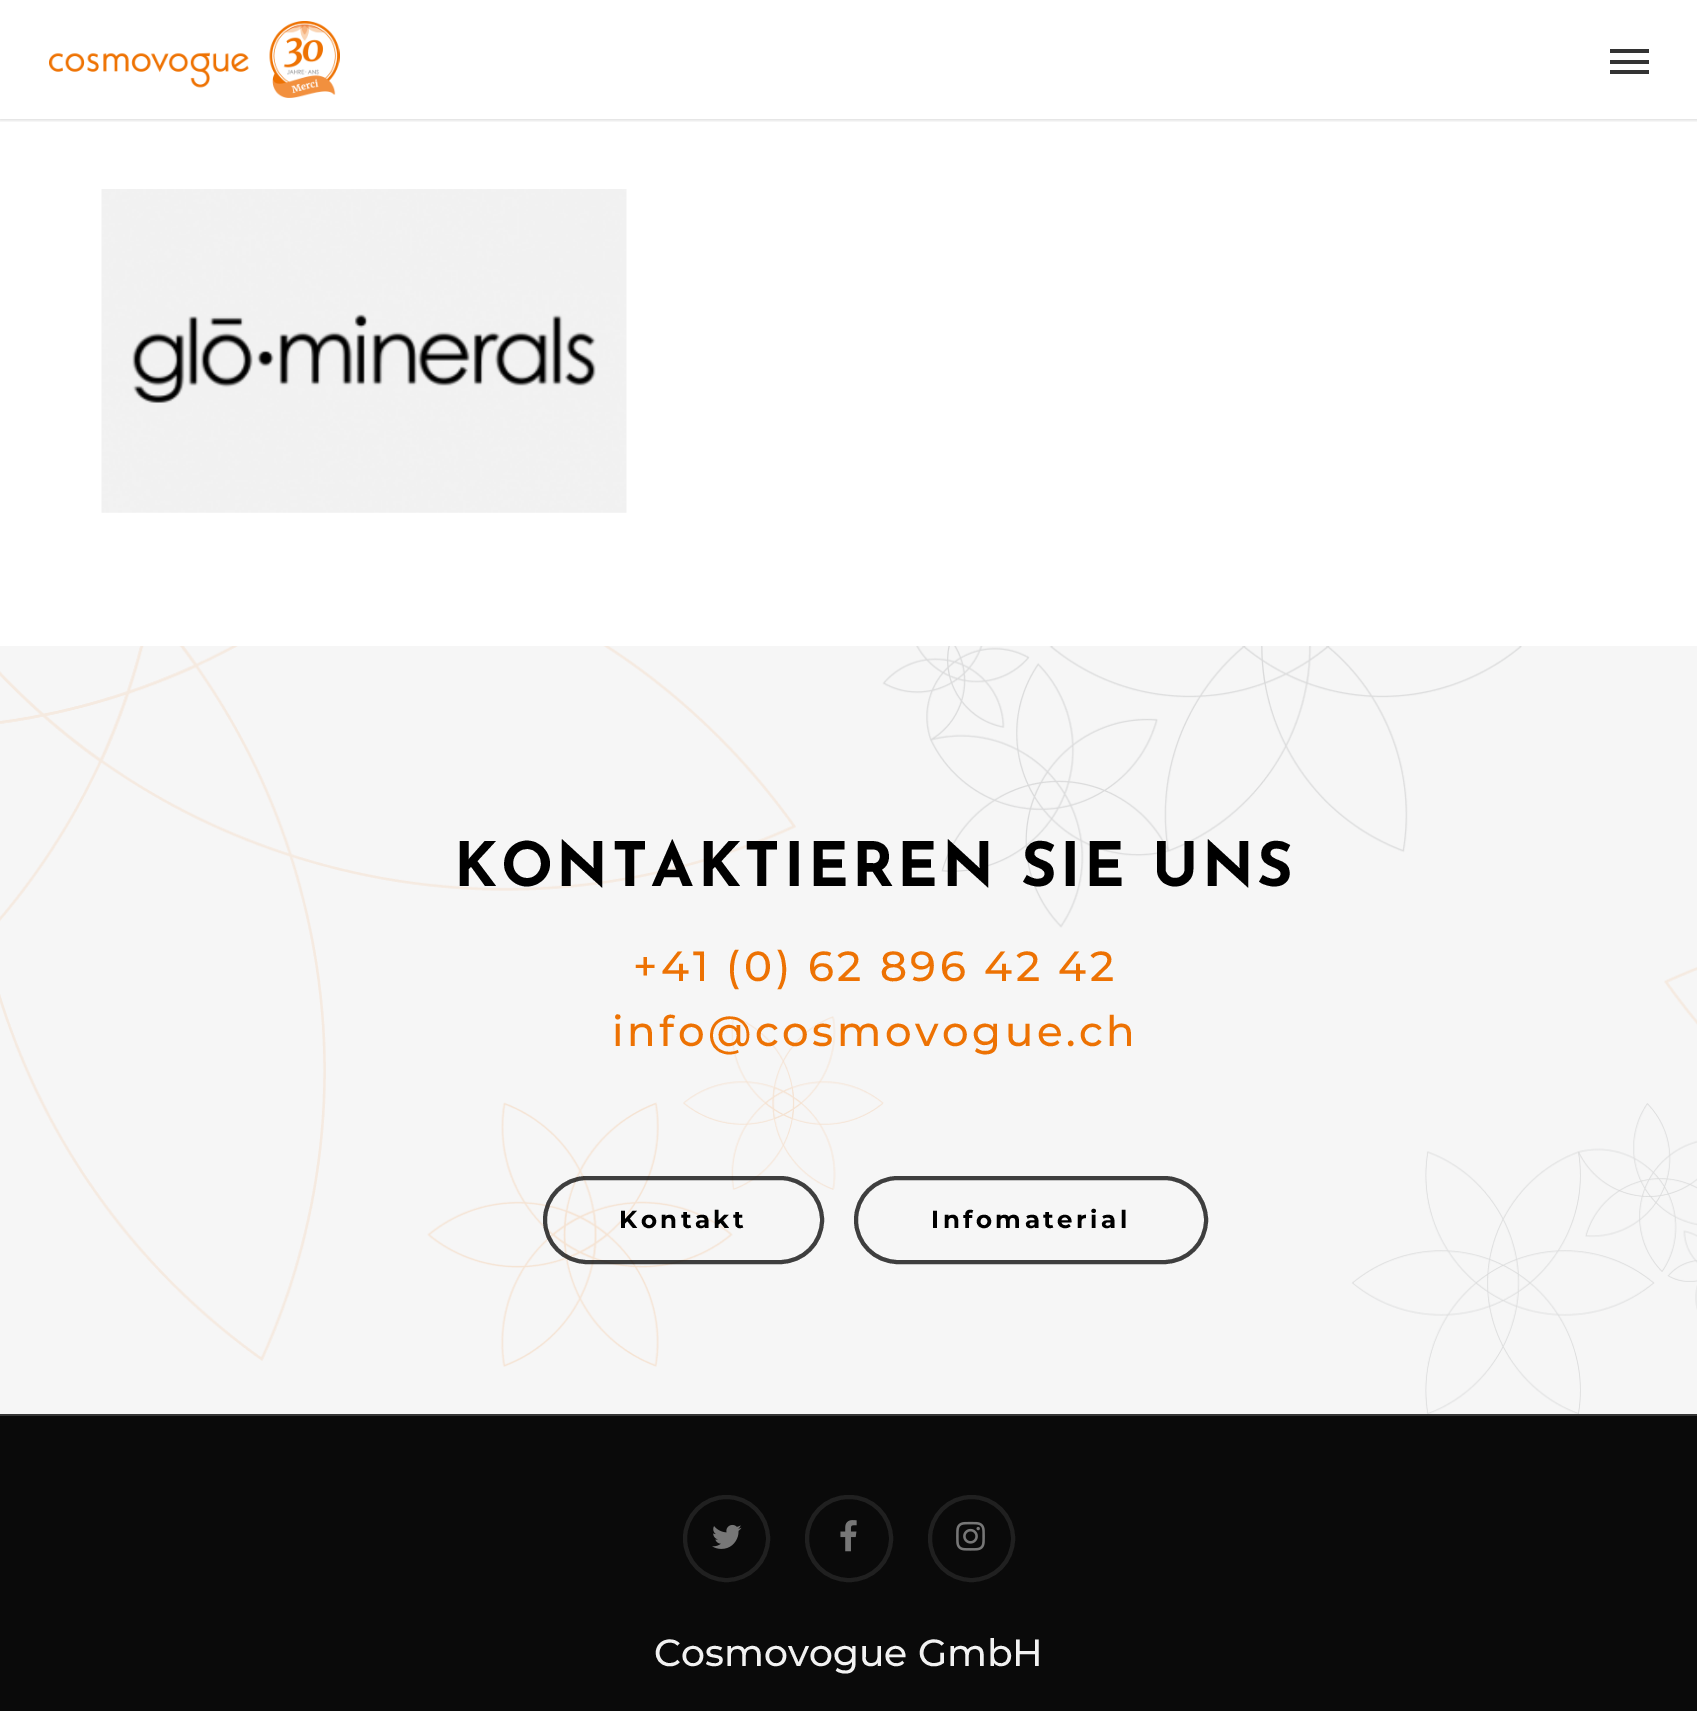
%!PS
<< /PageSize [1697 1711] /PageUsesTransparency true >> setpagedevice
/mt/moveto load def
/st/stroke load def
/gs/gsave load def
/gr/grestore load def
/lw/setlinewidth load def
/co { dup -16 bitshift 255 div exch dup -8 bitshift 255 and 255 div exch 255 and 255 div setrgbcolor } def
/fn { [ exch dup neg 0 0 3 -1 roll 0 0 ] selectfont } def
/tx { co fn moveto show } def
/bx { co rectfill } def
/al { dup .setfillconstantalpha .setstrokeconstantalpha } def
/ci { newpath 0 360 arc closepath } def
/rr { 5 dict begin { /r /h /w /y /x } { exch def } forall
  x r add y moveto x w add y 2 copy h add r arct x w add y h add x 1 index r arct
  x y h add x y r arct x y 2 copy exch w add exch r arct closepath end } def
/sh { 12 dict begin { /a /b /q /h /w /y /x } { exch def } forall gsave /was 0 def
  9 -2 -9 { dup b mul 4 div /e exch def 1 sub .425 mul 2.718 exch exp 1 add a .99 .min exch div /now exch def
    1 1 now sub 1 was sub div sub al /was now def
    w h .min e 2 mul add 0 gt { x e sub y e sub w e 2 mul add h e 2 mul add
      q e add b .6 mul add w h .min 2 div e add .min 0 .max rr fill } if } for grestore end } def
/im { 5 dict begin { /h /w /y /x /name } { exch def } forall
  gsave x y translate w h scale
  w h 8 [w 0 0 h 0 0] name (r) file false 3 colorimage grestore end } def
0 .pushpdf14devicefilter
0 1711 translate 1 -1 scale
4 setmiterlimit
0 0 1697 1711 16#FFFFFF bx
gs
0 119 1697 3 rectclip
16#000000 co
0 0 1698 119 0 2.5 .22 sh
gr
(media/1.raw) 49 21 291 77 im
1610 49 39 4 16#333333 bx
1610 70 39 4 16#333333 bx
1610 60 39 4 16#333333 bx
(media/2.raw) 101 189 526 324 im
0 646 1697 768 16#F6F6F6 bx
(media/3.raw) 0 646 1697 768 im
0.75 al
16#000000 co
4 lw
545 1178 277 84 42 rr st
1 al
16#3E3E3E co
856 1178 350 84 42 rr st
0 1416 1697 295 16#0A0A0A bx
0 1414 1697 2 16#363636 bx
(media/4.raw) 712 1524 30 25 im
16#202020 co
726.5 1538.5 41.5 ci st
(media/5.raw) 840 1520 17 32 im
807 1497 84 83 41.5 rr st
(media/6.raw) 956 1521 29 30 im
971.5 1538.5 41.5 ci st
/JosefinSans-Thin 61.25 fn
16#000000 co
454 886 mt 3.5 0 (KONTAKTIEREN SIE UNS) ashow
/Montserrat-Medium 42 fn
16#ED7203 co
633 981 mt 3.5 0 (+41 \(0\) 62 896 42 42) ashow
612 1046 mt 3.5 0 (info@cosmovogue.ch) ashow
/Montserrat-Bold 24.5 fn
16#000000 co
619 1228 mt 3.5 0 (Kontakt) ashow
931 1228 mt 3.5 0 (Infomaterial) ashow
(Cosmovogue GmbH) 654 1666 /Montserrat-Medium 37.75 16#F2F2F2 tx
.poppdf14devicefilter showpage
